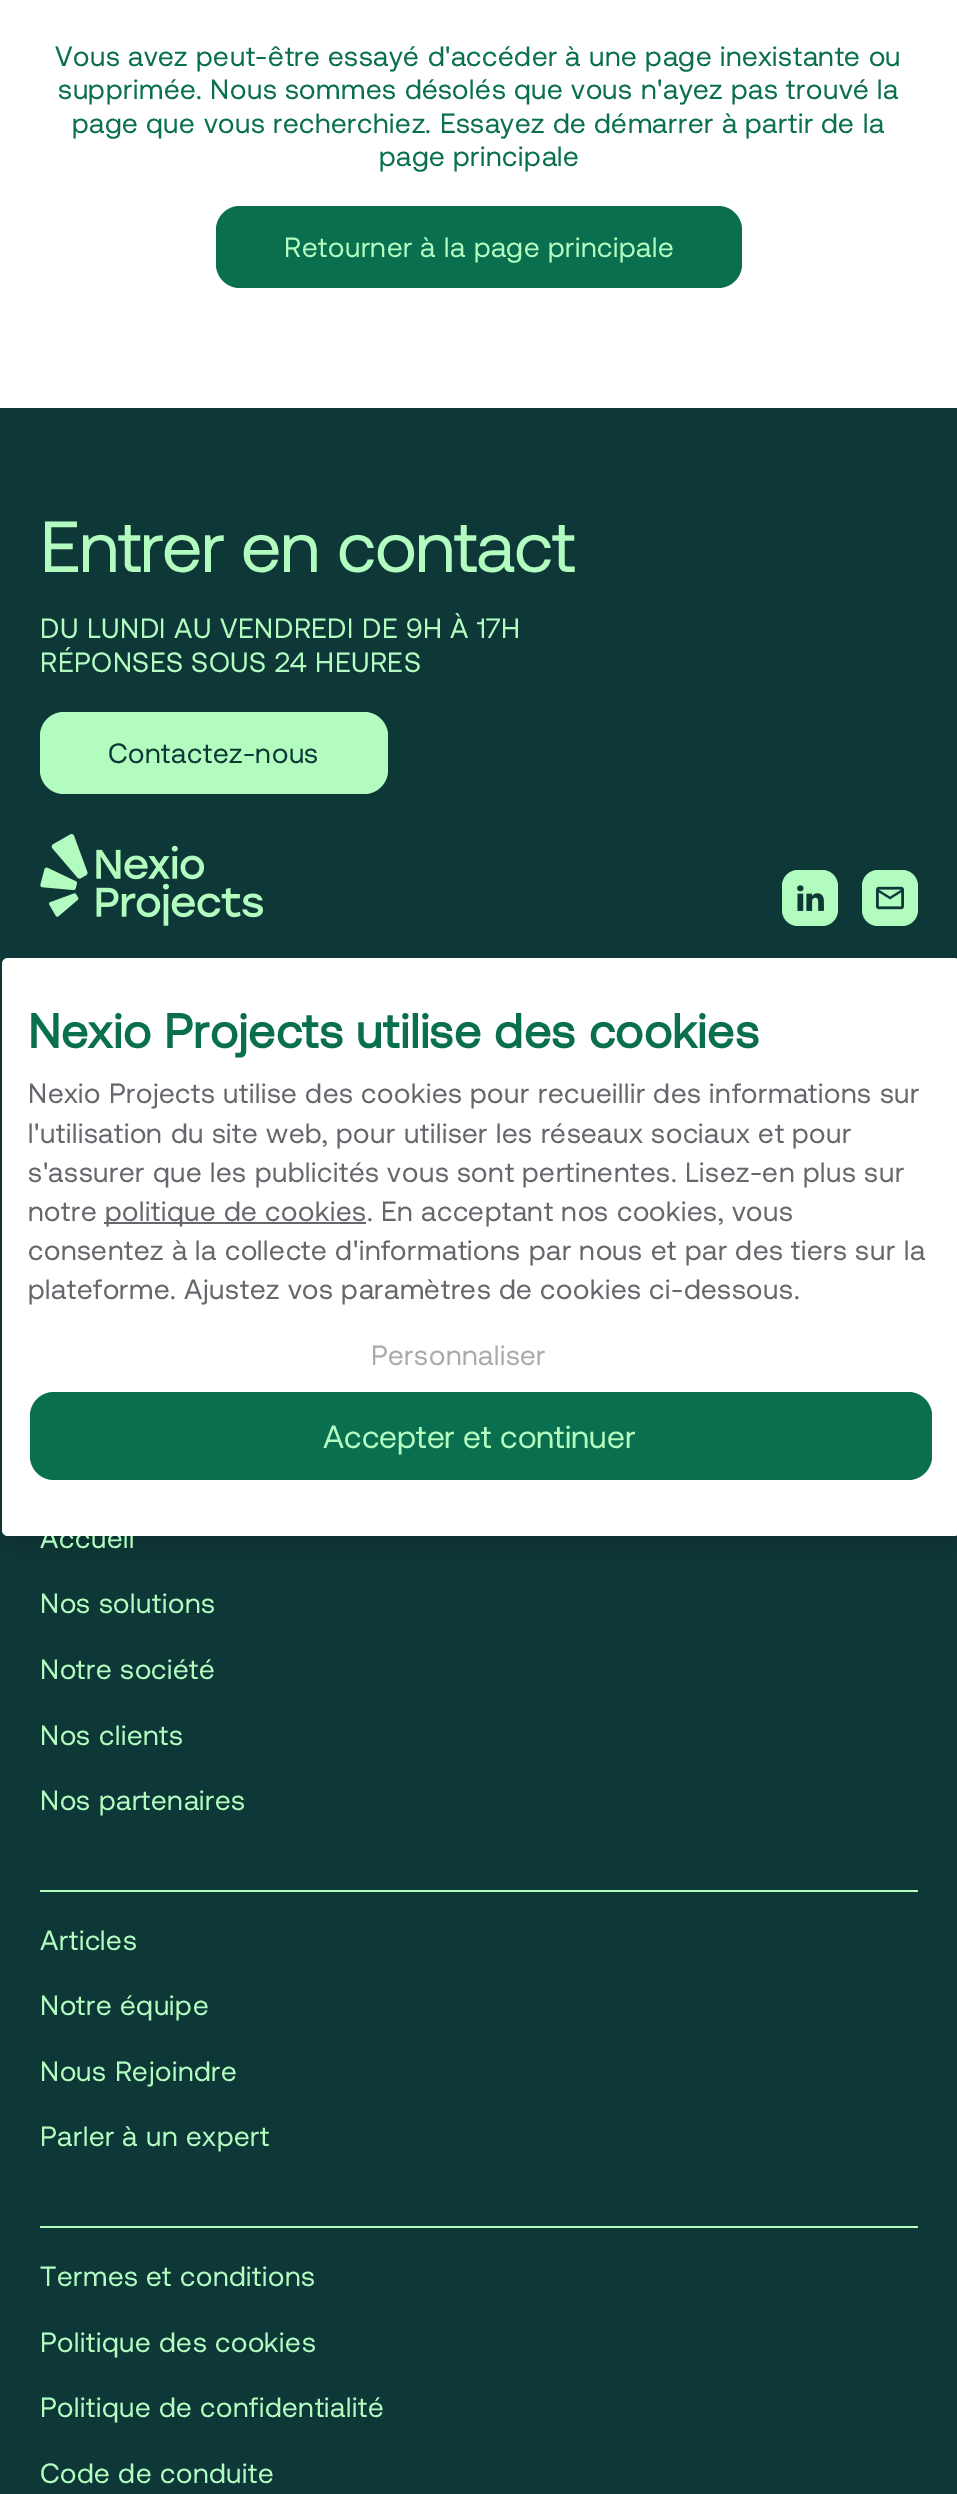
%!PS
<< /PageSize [957 2494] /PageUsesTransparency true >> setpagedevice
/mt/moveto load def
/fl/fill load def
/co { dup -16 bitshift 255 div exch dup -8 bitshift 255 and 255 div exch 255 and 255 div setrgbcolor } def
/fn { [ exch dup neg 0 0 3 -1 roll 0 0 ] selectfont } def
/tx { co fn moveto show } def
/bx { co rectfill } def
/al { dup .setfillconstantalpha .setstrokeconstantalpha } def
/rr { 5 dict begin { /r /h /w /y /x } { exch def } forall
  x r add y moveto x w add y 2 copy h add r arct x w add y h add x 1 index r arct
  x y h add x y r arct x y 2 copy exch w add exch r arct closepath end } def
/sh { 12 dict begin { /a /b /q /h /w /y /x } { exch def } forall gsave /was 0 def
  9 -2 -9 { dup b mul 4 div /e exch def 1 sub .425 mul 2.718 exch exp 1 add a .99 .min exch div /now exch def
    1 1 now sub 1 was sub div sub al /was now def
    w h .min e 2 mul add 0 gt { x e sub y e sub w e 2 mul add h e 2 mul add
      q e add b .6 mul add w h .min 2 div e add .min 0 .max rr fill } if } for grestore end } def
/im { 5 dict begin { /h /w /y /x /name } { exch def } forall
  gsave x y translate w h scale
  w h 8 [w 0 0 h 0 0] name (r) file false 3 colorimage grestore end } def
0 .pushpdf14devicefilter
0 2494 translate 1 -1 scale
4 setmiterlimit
0 0 957 2494 16#FFFFFF bx
16#096F4E co
216 206 526 82 24 rr fl
0 408 957 2086 16#0E3838 bx
16#B2FCBF co
40 712 348 82 24 rr fl
(media/1.raw) 40 834 223 92 im
782 870 56 56 16 rr fl
(media/2.raw) 797 885 27 26 im
862 870 56 56 16 rr fl
(media/3.raw) 876 886 28 24 im
40 1890 878 2 16#B2FCBF bx
40 2226 878 2 16#B2FCBF bx
16#000000 co
2 970 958 578 6 20 .15 sh
/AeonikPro-Regular 28 fn
16#096F4E co
55 66 mt .55 0 (Vous avez peut-être essayé d'accéder à une page inexistante ou) ashow
58 99 mt .55 0 (supprimée. Nous sommes désolés que vous n'ayez pas trouvé la) ashow
72 133 mt .55 0 (page que vous recherchiez. Essayez de démarrer à partir de la) ashow
379 166 mt .55 0 (page principale) ashow
16#B2FCBF co
284 257 mt .55 0 (Retourner à la page principale) ashow
/AeonikPro-Regular 72 fn
40 572 mt -1.4 0 (Entrer en contact) ashow
/AeonikPro-Regular 28 fn
40 638 mt .55 0 (DU LUNDI AU VENDREDI DE 9H À 17H) ashow
40 672 mt .55 0 (RÉPONSES SOUS 24 HEURES) ashow
16#0E3838 co
108 763 mt .55 0 (Contactez-nous) ashow
16#B2FCBF co
40 1548 mt .55 0 (Accueil) ashow
40 1613 mt .55 0 (Nos solutions) ashow
40 1679 mt .55 0 (Notre société) ashow
40 1745 mt .55 0 (Nos clients) ashow
40 1810 mt .55 0 (Nos partenaires) ashow
40 1950 mt .55 0 (Articles) ashow
40 2015 mt .55 0 (Notre équipe) ashow
40 2081 mt .55 0 (Nous Rejoindre) ashow
40 2146 mt .55 0 (Parler à un expert) ashow
40 2286 mt .55 0 (Termes et conditions) ashow
40 2352 mt .55 0 (Politique des cookies) ashow
40 2417 mt .55 0 (Politique de confidentialité) ashow
40 2483 mt .55 0 (Code de conduite) ashow
16#FFFFFF co
2 958 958 578 6 rr fl
/AeonikPro-Bold 48 fn
16#096F4E co
28 1048 mt .55 0 (Nexio Projects utilise des cookies) ashow
/AeonikPro-Regular 28 fn
16#6A656D co
28 1103 mt .55 0 (Nexio Projects utilise des cookies pour recueillir des informations sur) ashow
28 1143 mt .55 0 (l'utilisation du site web, pour utiliser les réseaux sociaux et pour) ashow
28 1182 mt .55 0 (s'assurer que les publicités vous sont pertinentes. Lisez-en plus sur) ashow
28 1221 mt .55 0 (notre) ashow
104 1222 262 2 16#6A656D bx
105 1221 mt .55 0 (politique de cookies. En acceptant nos cookies, vous) ashow
28 1260 mt .55 0 (consentez à la collecte d'informations par nous et par des tiers sur la) ashow
28 1299 mt .55 0 (plateforme. Ajustez vos paramètres de cookies ci-dessous.) ashow
16#AAAAAA co
371 1365 mt .55 0 (Personnaliser) ashow
16#096F4E co
30 1392 902 88 24 rr fl
(Accepter et continuer) 323 1448 /AeonikPro-Regular 32 16#B2FCBF tx
.poppdf14devicefilter showpage
